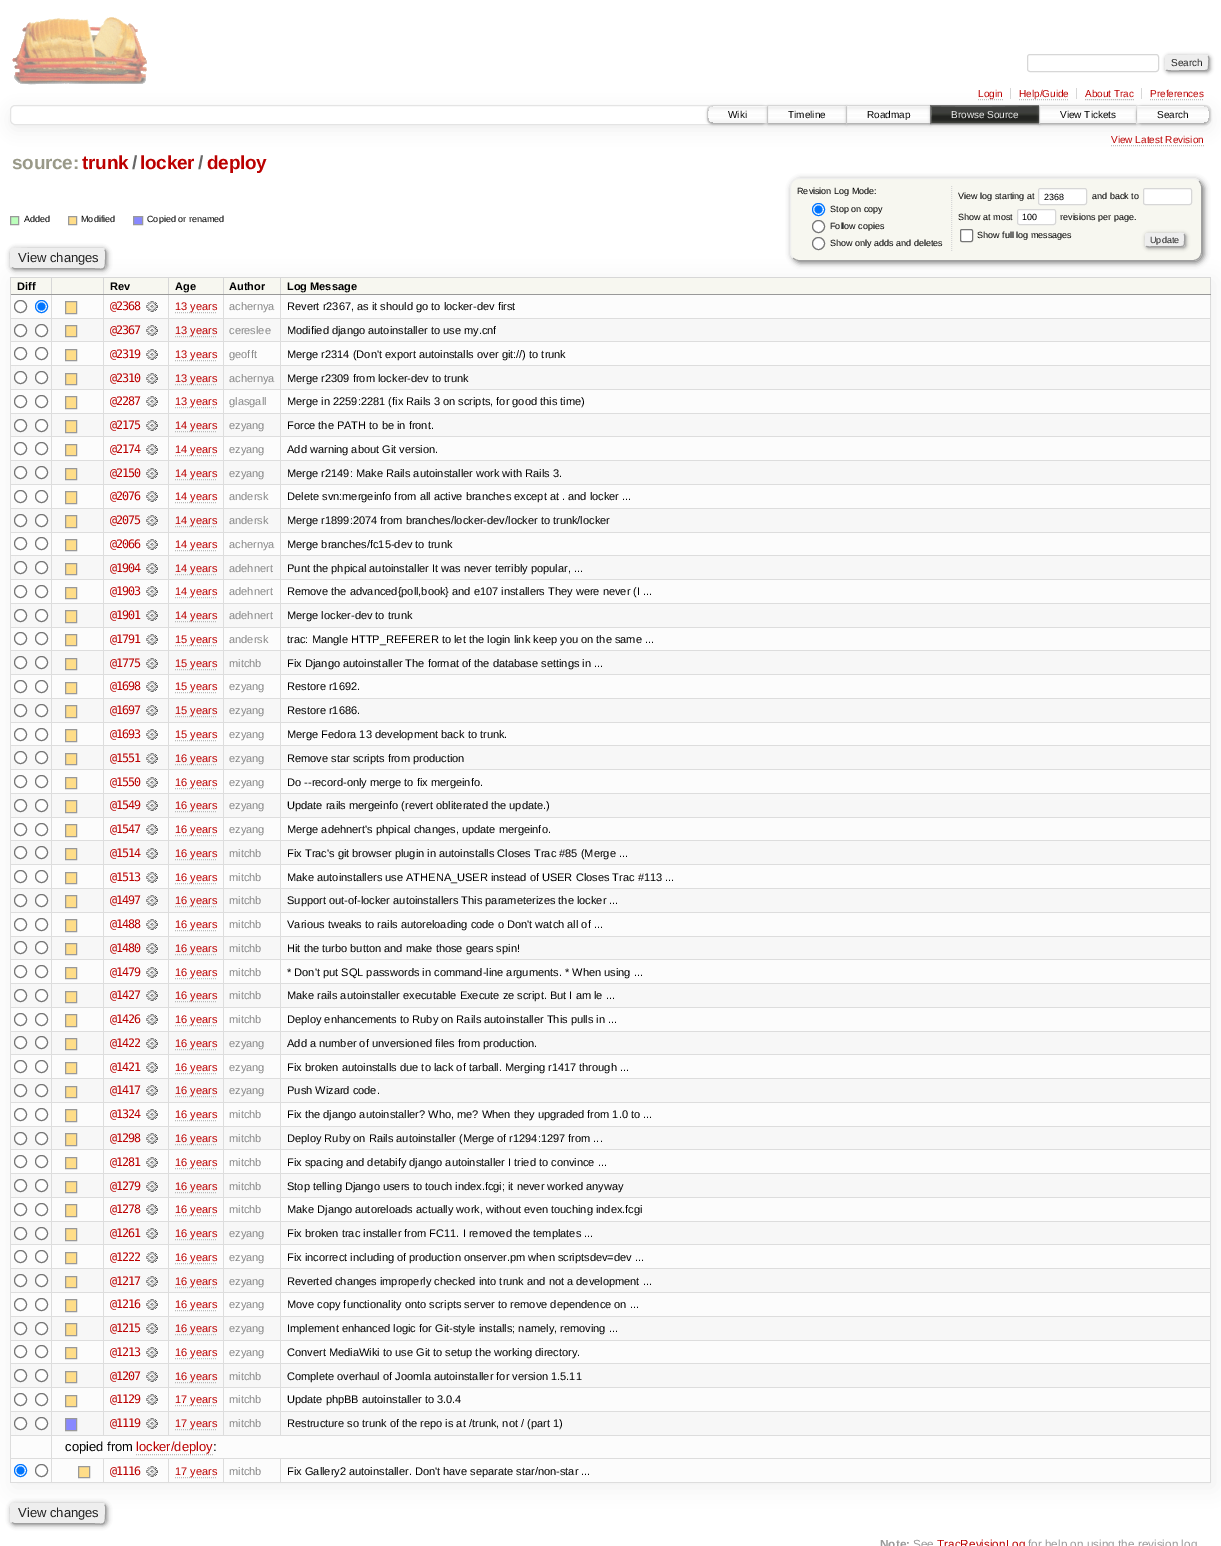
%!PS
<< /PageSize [1221 1546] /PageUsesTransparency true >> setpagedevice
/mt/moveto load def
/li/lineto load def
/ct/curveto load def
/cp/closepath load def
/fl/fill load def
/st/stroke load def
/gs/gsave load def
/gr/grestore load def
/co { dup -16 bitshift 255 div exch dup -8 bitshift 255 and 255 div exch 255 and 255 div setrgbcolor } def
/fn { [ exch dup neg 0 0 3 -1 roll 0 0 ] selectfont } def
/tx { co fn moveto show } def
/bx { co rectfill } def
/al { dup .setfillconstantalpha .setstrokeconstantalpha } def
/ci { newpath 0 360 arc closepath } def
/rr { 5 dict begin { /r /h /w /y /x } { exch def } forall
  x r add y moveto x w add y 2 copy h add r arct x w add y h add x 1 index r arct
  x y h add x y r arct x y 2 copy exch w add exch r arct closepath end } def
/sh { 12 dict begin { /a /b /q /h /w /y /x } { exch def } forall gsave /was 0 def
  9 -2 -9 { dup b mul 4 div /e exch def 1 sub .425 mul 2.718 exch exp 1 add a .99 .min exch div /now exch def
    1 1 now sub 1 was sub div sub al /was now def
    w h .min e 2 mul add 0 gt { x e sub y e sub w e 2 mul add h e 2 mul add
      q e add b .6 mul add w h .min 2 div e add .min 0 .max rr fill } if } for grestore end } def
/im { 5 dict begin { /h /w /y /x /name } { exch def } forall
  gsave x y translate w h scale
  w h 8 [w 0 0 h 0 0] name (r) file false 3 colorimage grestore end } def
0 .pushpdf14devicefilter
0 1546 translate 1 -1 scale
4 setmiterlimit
0 0 1221 1546 16#FFFFFF bx
(media/1.raw) 12 17 135 68 im
16#D7D7D7 co
1027.5 54.5 131 17 2.5 rr st
16#888888 co
1166 56 44 16 3 2 1 sh
16#EEEEEE co
1165 55 44 16 3 rr fl
16#9F9F9F co
1208 56 mt 1209.5 58 1208.5 61 1208.5 63 ct 1208.5 71.5 1209 70.5 1199.5 70.5 ct 1187 70.5 li 1184 70.5 1168 71.5 1166 70 ct st
16#EEEEEE co
1166 70 mt 1164.5 68 1165.5 65 1165.5 63 ct 1165.5 54.5 1165 55.5 1174.5 55.5 ct 1187 55.5 li 1190 55.5 1206 54.5 1208 56 ct st
gs
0 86 mt 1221 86 li 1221 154 li 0 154 li cp 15 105 mt 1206 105 li 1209 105 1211 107 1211 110 ct 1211 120 li 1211 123 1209 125 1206 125 ct 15 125 li 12 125 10 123 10 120 ct 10 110 li 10 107 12 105 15 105 ct cp eoclip newpath
10 110 1201 20 5 7.5 1 sh
gr
1010 88 1 11 16#D7D7D7 bx
16#BBBBBB co
[1 1] 0 setdash
978 99.5 mt 1003 99.5 li st
1076 88 1 11 16#D7D7D7 bx
16#BBBBBB co
1019 99.5 mt 1069 99.5 li st
1141 88 1 11 16#D7D7D7 bx
16#BBBBBB co
1085 99.5 mt 1134 99.5 li st
1150 99.5 mt 1204 99.5 li st
16#E4E4E4 co
[] 0 setdash
10.5 105.5 1200 19 4.5 rr st
16#FFFFFF co
712 105 mt 768 105 li 768 124 li 712 124 li 709 124 707 122 707 119 ct 707 110 li 707 107 709 105 712 105 ct cp fl
(media/2.raw) 707 107 60 17 im
16#E4E4E4 co
712 105.5 mt 767.5 105.5 li 767.5 123.5 li 712 123.5 li 709.5 123.5 707.5 121.5 707.5 119 ct 707.5 110 li 707.5 107.5 709.5 105.5 712 105.5 ct cp st
gs
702 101 mt 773 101 li 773 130 li 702 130 li cp 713 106 mt 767 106 li 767 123 li 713 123 li 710 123 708 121 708 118 ct 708 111 li 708 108 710 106 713 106 ct cp eoclip newpath
16#999999 co
708 107 59 17 5 1.5 1 sh
gr
768 108 2 15 16#FFFFFF bx
(media/3.raw) 768 107 78 16 im
16#E4E4E4 co
767.5 105.5 79 18 rectstroke
gs
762 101 mt 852 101 li 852 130 li 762 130 li cp 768 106 mt 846 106 li 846 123 li 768 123 li cp eoclip newpath
16#999999 co
768 107 78 17 0 1.5 1 sh
gr
847 106 2 17 16#FFFFFF bx
(media/4.raw) 847 107 83 16 im
16#E4E4E4 co
846.5 105.5 84 18 rectstroke
gs
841 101 mt 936 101 li 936 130 li 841 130 li cp 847 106 mt 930 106 li 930 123 li 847 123 li cp eoclip newpath
16#999999 co
847 107 83 17 0 1.5 1 sh
gr
16#666666 co
930.5 105.5 109 18 rectstroke
16#999999 co
931 107 108 17 0 1.5 1 sh
931 106 108 17 16#000000 bx
(media/5.raw) 931 106 108 17 im
1040 106 2 17 16#FFFFFF bx
(media/6.raw) 1040 107 96 16 im
16#E4E4E4 co
1039.5 105.5 97 18 rectstroke
gs
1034 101 mt 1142 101 li 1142 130 li 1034 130 li cp 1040 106 mt 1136 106 li 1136 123 li 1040 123 li cp eoclip newpath
16#999999 co
1040 107 96 17 0 1.5 1 sh
gr
16#FFFFFF co
1136 105 mt 1205 105 li 1208 105 1210 107 1210 110 ct 1210 119 li 1210 122 1208 124 1205 124 ct 1136 124 li cp fl
(media/7.raw) 1137 107 73 17 im
16#E4E4E4 co
1136.5 105.5 mt 1205 105.5 li 1207.5 105.5 1209.5 107.5 1209.5 110 ct 1209.5 119 li 1209.5 121.5 1207.5 123.5 1205 123.5 ct 1136.5 123.5 li cp st
gs
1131 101 mt 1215 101 li 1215 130 li 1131 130 li cp 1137 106 mt 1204 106 li 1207 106 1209 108 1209 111 ct 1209 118 li 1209 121 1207 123 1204 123 ct 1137 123 li cp eoclip newpath
16#999999 co
1137 107 72 17 5 1.5 1 sh
gr
16#BBBBBB co
[1 1] 0 setdash
1111 145.5 mt 1204 145.5 li st
16#BBFFBB co
10.5 216.5 mt 18.5 216.5 li 18.5 224.5 li 10.5 224.5 li cp gs fl gr
16#999999 co
[] 0 setdash
st
16#FFDD88 co
68.5 216.5 mt 76.5 216.5 li 76.5 224.5 li 68.5 224.5 li cp gs fl gr
16#999999 co
st
16#8888FF co
133.5 216.5 mt 142.5 216.5 li 142.5 224.5 li 133.5 224.5 li cp gs fl gr
16#999999 co
st
16#777777 co
792 180 412 83 9 3 1 sh
16#EEEEEE co
13 281 1201 1206 0 10 1 sh
16#F7F7F0 co
790 178 412 83 9 rr fl
16#9F9F9F co
1199 181 mt 1200.5 182.5 1201.5 184.5 1201.5 187 ct 1201.5 252 li 1201.5 254.5 1200.5 256.5 1199 258 ct 1197.5 259.5 1195.5 260.5 1193 260.5 ct 799 260.5 li 796.5 260.5 794.5 259.5 793 258 ct st
16#EEEEEE co
793 258 mt 791.5 256.5 790.5 254.5 790.5 252 ct 790.5 187 li 790.5 184.5 791.5 182.5 793 181 ct 794.5 179.5 796.5 178.5 799 178.5 ct 1193 178.5 li 1195.5 178.5 1197.5 179.5 1199 181 ct st
16#D7D7D7 co
[1 1] 0 setdash
951.5 186 mt 951.5 252 li st
16#FFFFFF co
818.5 209.5 6 ci gs fl gr
16#0075FF co
[] 0 setdash
st
818.5 209.5 4 ci fl
16#FFFFFF co
818.5 226.5 6 ci gs fl gr
16#767676 co
st
16#FFFFFF co
818.5 243.5 6 ci gs fl gr
16#767676 co
st
16#FFFFFF co
1038.5 188.5 48 16 2 rr gs fl gr
16#D7D7D7 co
st
16#FFFFFF co
1143.5 188.5 48 16 2 rr gs fl gr
16#D7D7D7 co
st
16#FFFFFF co
1017.5 209.5 38 15 2 rr gs fl gr
16#D7D7D7 co
st
16#FFFFFF co
960.5 229.5 12 12 1.5 rr gs fl gr
16#767676 co
st
16#888888 co
1146 234 40 14 2.5 2 1 sh
16#EEEEEE co
1145 233 40 14 2.5 rr fl
16#9F9F9F co
1184 234 mt 1185 235.5 1184.5 238.5 1184.5 240 ct 1184.5 247.5 1184.5 246.5 1176.5 246.5 ct 1153.5 246.5 li 1153 246.5 1147.5 247.5 1146 246 ct st
16#EEEEEE co
1146 246 mt 1145 244.5 1145.5 241.5 1145.5 240 ct 1145.5 232.5 1145.5 233.5 1153.5 233.5 ct 1176.5 233.5 li 1177 233.5 1182.5 232.5 1184 234 ct st
11 278 1199 16 16#F7F7F0 bx
280 277 931 1 16#D7D7D7 bx
10 318 1201 1 16#DDDDDD bx
10 341 1201 1 16#DDDDDD bx
10 365 1201 1 16#DDDDDD bx
10 389 1201 1 16#DDDDDD bx
10 413 1201 1 16#DDDDDD bx
10 436 1201 1 16#DDDDDD bx
10 460 1201 1 16#DDDDDD bx
10 484 1201 1 16#DDDDDD bx
10 508 1201 1 16#DDDDDD bx
10 532 1201 1 16#DDDDDD bx
10 555 1201 1 16#DDDDDD bx
10 579 1201 1 16#DDDDDD bx
10 603 1201 1 16#DDDDDD bx
10 627 1201 1 16#DDDDDD bx
10 650 1201 1 16#DDDDDD bx
10 674 1201 1 16#DDDDDD bx
10 698 1201 1 16#DDDDDD bx
10 722 1201 1 16#DDDDDD bx
10 745 1201 1 16#DDDDDD bx
10 769 1201 1 16#DDDDDD bx
10 793 1201 1 16#DDDDDD bx
10 817 1201 1 16#DDDDDD bx
10 840 1201 1 16#DDDDDD bx
10 864 1201 1 16#DDDDDD bx
10 888 1201 1 16#DDDDDD bx
10 912 1201 1 16#DDDDDD bx
10 936 1201 1 16#DDDDDD bx
10 959 1201 1 16#DDDDDD bx
10 983 1201 1 16#DDDDDD bx
10 1007 1201 1 16#DDDDDD bx
10 1031 1201 1 16#DDDDDD bx
10 1054 1201 1 16#DDDDDD bx
10 1078 1201 1 16#DDDDDD bx
10 1102 1201 1 16#DDDDDD bx
10 1126 1201 1 16#DDDDDD bx
10 1149 1201 1 16#DDDDDD bx
10 1173 1201 1 16#DDDDDD bx
10 1197 1201 1 16#DDDDDD bx
10 1221 1201 1 16#DDDDDD bx
10 1244 1201 1 16#DDDDDD bx
10 1268 1201 1 16#DDDDDD bx
10 1292 1201 1 16#DDDDDD bx
10 1316 1201 1 16#DDDDDD bx
10 1340 1201 1 16#DDDDDD bx
10 1363 1201 1 16#DDDDDD bx
10 1387 1201 1 16#DDDDDD bx
10 1411 1201 1 16#DDDDDD bx
10 1435 1201 1 16#DDDDDD bx
10 1458 1201 1 16#DDDDDD bx
1210 294 1 1189 16#DDDDDD bx
1210 277 1 18 16#D7D7D7 bx
11 295 1199 23 16#FCFCFC bx
16 319 1194 22 16#F7F7F7 bx
11 342 1199 23 16#FCFCFC bx
16 366 1194 23 16#F7F7F7 bx
11 390 1199 23 16#FCFCFC bx
16 414 1194 22 16#F7F7F7 bx
11 437 1199 23 16#FCFCFC bx
16 461 1194 23 16#F7F7F7 bx
11 485 1199 23 16#FCFCFC bx
16 509 1194 23 16#F7F7F7 bx
11 533 1199 22 16#FCFCFC bx
16 556 1194 23 16#F7F7F7 bx
11 580 1199 23 16#FCFCFC bx
16 604 1194 23 16#F7F7F7 bx
11 628 1199 22 16#FCFCFC bx
16 651 1194 23 16#F7F7F7 bx
11 675 1199 23 16#FCFCFC bx
16 699 1194 23 16#F7F7F7 bx
11 723 1199 22 16#FCFCFC bx
16 746 1194 23 16#F7F7F7 bx
11 770 1199 23 16#FCFCFC bx
16 794 1194 23 16#F7F7F7 bx
11 818 1199 22 16#FCFCFC bx
16 841 1194 23 16#F7F7F7 bx
11 865 1199 23 16#FCFCFC bx
16 889 1194 23 16#F7F7F7 bx
11 913 1199 23 16#FCFCFC bx
16 937 1194 22 16#F7F7F7 bx
11 960 1199 23 16#FCFCFC bx
16 984 1194 23 16#F7F7F7 bx
11 1008 1199 23 16#FCFCFC bx
16 1032 1194 22 16#F7F7F7 bx
11 1055 1199 23 16#FCFCFC bx
16 1079 1194 23 16#F7F7F7 bx
11 1103 1199 23 16#FCFCFC bx
16 1127 1194 22 16#F7F7F7 bx
11 1150 1199 23 16#FCFCFC bx
16 1174 1194 23 16#F7F7F7 bx
11 1198 1199 23 16#FCFCFC bx
16 1222 1194 22 16#F7F7F7 bx
11 1245 1199 23 16#FCFCFC bx
16 1269 1194 23 16#F7F7F7 bx
11 1293 1199 23 16#FCFCFC bx
16 1317 1194 23 16#F7F7F7 bx
11 1341 1199 22 16#FCFCFC bx
16 1364 1194 23 16#F7F7F7 bx
11 1388 1199 23 16#FCFCFC bx
16 1412 1194 23 16#F7F7F7 bx
280 294 1 1142 16#DDDDDD bx
280 294 931 1 16#999999 bx
280 277 1 18 16#D7D7D7 bx
223 277 58 1 16#D7D7D7 bx
223 294 1 1142 16#DDDDDD bx
223 294 58 1 16#999999 bx
223 277 1 18 16#D7D7D7 bx
168 277 56 1 16#D7D7D7 bx
168 294 1 1142 16#DDDDDD bx
168 294 56 1 16#999999 bx
168 277 1 18 16#D7D7D7 bx
103 277 66 1 16#D7D7D7 bx
103 294 1 1142 16#DDDDDD bx
103 294 66 1 16#999999 bx
103 277 1 18 16#D7D7D7 bx
51 277 53 1 16#D7D7D7 bx
11 1436 1199 22 16#FCFCFC bx
11 1459 1199 23 16#FCFCFC bx
280 1482 931 1 16#DDDDDD bx
280 1458 1 25 16#DDDDDD bx
223 1482 58 1 16#DDDDDD bx
223 1458 1 25 16#DDDDDD bx
168 1482 56 1 16#DDDDDD bx
168 1458 1 25 16#DDDDDD bx
103 1482 66 1 16#DDDDDD bx
103 1458 1 25 16#DDDDDD bx
51 1482 53 1 16#DDDDDD bx
51 294 1 1189 16#DDDDDD bx
51 294 53 1 16#999999 bx
51 277 1 18 16#D7D7D7 bx
10 277 42 1 16#D7D7D7 bx
10 1482 42 1 16#DDDDDD bx
10 294 1 1189 16#DDDDDD bx
10 294 42 1 16#999999 bx
10 277 1 18 16#D7D7D7 bx
16#888888 co
11 249 96 21 4 2.5 1 sh
16#EEEEEE co
10 248 96 21 4 rr fl
16#9F9F9F co
104.5 249.5 mt 106.5 251.5 105.5 256 105.5 258.5 ct 105.5 272.5 104.5 268.5 87.5 268.5 ct 14 268.5 li 11.5 267.5 li st
16#EEEEEE co
11.5 267.5 mt 9.5 265.5 10.5 261 10.5 258.5 ct 10.5 244.5 11.5 248.5 28.5 248.5 ct 102 248.5 li 104.5 249.5 li st
16#FFFFFF co
20.5 306.5 6 ci gs fl gr
16#767676 co
st
16#FFFFFF co
41.5 306.5 6 ci gs fl gr
16#0075FF co
st
41.5 306.5 4 ci fl
16#FFDD88 co
65.5 301.5 mt 76.5 301.5 li 76.5 313.5 li 65.5 313.5 li cp gs fl gr
16#999999 co
st
(media/8.raw) 146 301 12 11 im
16#BBBBBB co
[1 1] 0 setdash
175 312.5 mt 217 312.5 li st
16#FFFFFF co
20.5 330.5 6 ci gs fl gr
16#767676 co
[] 0 setdash
st
16#FFFFFF co
41.5 330.5 6 ci gs fl gr
16#767676 co
st
16#FFDD88 co
65.5 325.5 mt 76.5 325.5 li 76.5 336.5 li 65.5 336.5 li cp gs fl gr
16#999999 co
st
(media/9.raw) 146 325 12 11 im
16#BBBBBB co
[1 1] 0 setdash
175 336.5 mt 217 336.5 li st
16#FFFFFF co
20.5 353.5 6 ci gs fl gr
16#767676 co
[] 0 setdash
st
16#FFFFFF co
41.5 353.5 6 ci gs fl gr
16#767676 co
st
16#FFDD88 co
65.5 349.5 mt 76.5 349.5 li 76.5 360.5 li 65.5 360.5 li cp gs fl gr
16#999999 co
st
(media/8.raw) 146 349 12 11 im
16#BBBBBB co
[1 1] 0 setdash
175 360.5 mt 217 360.5 li st
16#FFFFFF co
20.5 377.5 6 ci gs fl gr
16#767676 co
[] 0 setdash
st
16#FFFFFF co
41.5 377.5 6 ci gs fl gr
16#767676 co
st
16#FFDD88 co
65.5 373.5 mt 76.5 373.5 li 76.5 384.5 li 65.5 384.5 li cp gs fl gr
16#999999 co
st
(media/9.raw) 146 373 12 11 im
16#BBBBBB co
[1 1] 0 setdash
175 384.5 mt 217 384.5 li st
16#FFFFFF co
20.5 401.5 6 ci gs fl gr
16#767676 co
[] 0 setdash
st
16#FFFFFF co
41.5 401.5 6 ci gs fl gr
16#767676 co
st
16#FFDD88 co
65.5 396.5 mt 76.5 396.5 li 76.5 408.5 li 65.5 408.5 li cp gs fl gr
16#999999 co
st
(media/8.raw) 146 396 12 11 im
16#BBBBBB co
[1 1] 0 setdash
175 407.5 mt 217 407.5 li st
16#FFFFFF co
20.5 425.5 6 ci gs fl gr
16#767676 co
[] 0 setdash
st
16#FFFFFF co
41.5 425.5 6 ci gs fl gr
16#767676 co
st
16#FFDD88 co
65.5 420.5 mt 76.5 420.5 li 76.5 432.5 li 65.5 432.5 li cp gs fl gr
16#999999 co
st
(media/9.raw) 146 420 12 11 im
16#BBBBBB co
[1 1] 0 setdash
175 431.5 mt 217 431.5 li st
16#FFFFFF co
20.5 448.5 6 ci gs fl gr
16#767676 co
[] 0 setdash
st
16#FFFFFF co
41.5 448.5 6 ci gs fl gr
16#767676 co
st
16#FFDD88 co
65.5 444.5 mt 76.5 444.5 li 76.5 455.5 li 65.5 455.5 li cp gs fl gr
16#999999 co
st
(media/8.raw) 146 444 12 11 im
16#BBBBBB co
[1 1] 0 setdash
175 455.5 mt 217 455.5 li st
16#FFFFFF co
20.5 472.5 6 ci gs fl gr
16#767676 co
[] 0 setdash
st
16#FFFFFF co
41.5 472.5 6 ci gs fl gr
16#767676 co
st
16#FFDD88 co
65.5 468.5 mt 76.5 468.5 li 76.5 479.5 li 65.5 479.5 li cp gs fl gr
16#999999 co
st
(media/9.raw) 146 468 12 11 im
16#BBBBBB co
[1 1] 0 setdash
175 479.5 mt 217 479.5 li st
16#FFFFFF co
20.5 496.5 6 ci gs fl gr
16#767676 co
[] 0 setdash
st
16#FFFFFF co
41.5 496.5 6 ci gs fl gr
16#767676 co
st
16#FFDD88 co
65.5 491.5 mt 76.5 491.5 li 76.5 503.5 li 65.5 503.5 li cp gs fl gr
16#999999 co
st
(media/8.raw) 146 491 12 11 im
16#BBBBBB co
[1 1] 0 setdash
175 502.5 mt 217 502.5 li st
16#FFFFFF co
20.5 520.5 6 ci gs fl gr
16#767676 co
[] 0 setdash
st
16#FFFFFF co
41.5 520.5 6 ci gs fl gr
16#767676 co
st
16#FFDD88 co
65.5 515.5 mt 76.5 515.5 li 76.5 527.5 li 65.5 527.5 li cp gs fl gr
16#999999 co
st
(media/9.raw) 146 515 12 11 im
16#BBBBBB co
[1 1] 0 setdash
175 526.5 mt 217 526.5 li st
16#FFFFFF co
20.5 543.5 6 ci gs fl gr
16#767676 co
[] 0 setdash
st
16#FFFFFF co
41.5 543.5 6 ci gs fl gr
16#767676 co
st
16#FFDD88 co
65.5 539.5 mt 76.5 539.5 li 76.5 550.5 li 65.5 550.5 li cp gs fl gr
16#999999 co
st
(media/8.raw) 146 539 12 11 im
16#BBBBBB co
[1 1] 0 setdash
175 550.5 mt 217 550.5 li st
16#FFFFFF co
20.5 567.5 6 ci gs fl gr
16#767676 co
[] 0 setdash
st
16#FFFFFF co
41.5 567.5 6 ci gs fl gr
16#767676 co
st
16#FFDD88 co
65.5 563.5 mt 76.5 563.5 li 76.5 574.5 li 65.5 574.5 li cp gs fl gr
16#999999 co
st
(media/9.raw) 146 563 12 11 im
16#BBBBBB co
[1 1] 0 setdash
175 574.5 mt 217 574.5 li st
16#FFFFFF co
20.5 591.5 6 ci gs fl gr
16#767676 co
[] 0 setdash
st
16#FFFFFF co
41.5 591.5 6 ci gs fl gr
16#767676 co
st
16#FFDD88 co
65.5 587.5 mt 76.5 587.5 li 76.5 598.5 li 65.5 598.5 li cp gs fl gr
16#999999 co
st
(media/8.raw) 146 586 12 11 im
16#BBBBBB co
[1 1] 0 setdash
175 597.5 mt 217 597.5 li st
16#FFFFFF co
20.5 615.5 6 ci gs fl gr
16#767676 co
[] 0 setdash
st
16#FFFFFF co
41.5 615.5 6 ci gs fl gr
16#767676 co
st
16#FFDD88 co
65.5 610.5 mt 76.5 610.5 li 76.5 622.5 li 65.5 622.5 li cp gs fl gr
16#999999 co
st
(media/9.raw) 146 610 12 11 im
16#BBBBBB co
[1 1] 0 setdash
175 621.5 mt 217 621.5 li st
16#FFFFFF co
20.5 638.5 6 ci gs fl gr
16#767676 co
[] 0 setdash
st
16#FFFFFF co
41.5 638.5 6 ci gs fl gr
16#767676 co
st
16#FFDD88 co
65.5 634.5 mt 76.5 634.5 li 76.5 645.5 li 65.5 645.5 li cp gs fl gr
16#999999 co
st
(media/8.raw) 146 634 12 11 im
16#BBBBBB co
[1 1] 0 setdash
175 645.5 mt 217 645.5 li st
16#FFFFFF co
20.5 662.5 6 ci gs fl gr
16#767676 co
[] 0 setdash
st
16#FFFFFF co
41.5 662.5 6 ci gs fl gr
16#767676 co
st
16#FFDD88 co
65.5 658.5 mt 76.5 658.5 li 76.5 669.5 li 65.5 669.5 li cp gs fl gr
16#999999 co
st
(media/9.raw) 146 658 12 11 im
16#BBBBBB co
[1 1] 0 setdash
175 669.5 mt 217 669.5 li st
16#FFFFFF co
20.5 686.5 6 ci gs fl gr
16#767676 co
[] 0 setdash
st
16#FFFFFF co
41.5 686.5 6 ci gs fl gr
16#767676 co
st
16#FFDD88 co
65.5 682.5 mt 76.5 682.5 li 76.5 693.5 li 65.5 693.5 li cp gs fl gr
16#999999 co
st
(media/8.raw) 146 681 12 11 im
16#BBBBBB co
[1 1] 0 setdash
175 692.5 mt 217 692.5 li st
16#FFFFFF co
20.5 710.5 6 ci gs fl gr
16#767676 co
[] 0 setdash
st
16#FFFFFF co
41.5 710.5 6 ci gs fl gr
16#767676 co
st
16#FFDD88 co
65.5 705.5 mt 76.5 705.5 li 76.5 717.5 li 65.5 717.5 li cp gs fl gr
16#999999 co
st
(media/9.raw) 146 705 12 11 im
16#BBBBBB co
[1 1] 0 setdash
175 716.5 mt 217 716.5 li st
16#FFFFFF co
20.5 734.5 6 ci gs fl gr
16#767676 co
[] 0 setdash
st
16#FFFFFF co
41.5 734.5 6 ci gs fl gr
16#767676 co
st
16#FFDD88 co
65.5 729.5 mt 76.5 729.5 li 76.5 741.5 li 65.5 741.5 li cp gs fl gr
16#999999 co
st
(media/8.raw) 146 729 12 11 im
16#BBBBBB co
[1 1] 0 setdash
175 740.5 mt 217 740.5 li st
16#FFFFFF co
20.5 757.5 6 ci gs fl gr
16#767676 co
[] 0 setdash
st
16#FFFFFF co
41.5 757.5 6 ci gs fl gr
16#767676 co
st
16#FFDD88 co
65.5 753.5 mt 76.5 753.5 li 76.5 764.5 li 65.5 764.5 li cp gs fl gr
16#999999 co
st
(media/9.raw) 146 753 12 11 im
16#BBBBBB co
[1 1] 0 setdash
175 764.5 mt 217 764.5 li st
16#FFFFFF co
20.5 781.5 6 ci gs fl gr
16#767676 co
[] 0 setdash
st
16#FFFFFF co
41.5 781.5 6 ci gs fl gr
16#767676 co
st
16#FFDD88 co
65.5 777.5 mt 76.5 777.5 li 76.5 788.5 li 65.5 788.5 li cp gs fl gr
16#999999 co
st
(media/8.raw) 146 777 12 11 im
16#BBBBBB co
[1 1] 0 setdash
175 788.5 mt 217 788.5 li st
16#FFFFFF co
20.5 805.5 6 ci gs fl gr
16#767676 co
[] 0 setdash
st
16#FFFFFF co
41.5 805.5 6 ci gs fl gr
16#767676 co
st
16#FFDD88 co
65.5 800.5 mt 76.5 800.5 li 76.5 812.5 li 65.5 812.5 li cp gs fl gr
16#999999 co
st
(media/9.raw) 146 800 12 11 im
16#BBBBBB co
[1 1] 0 setdash
175 811.5 mt 217 811.5 li st
16#FFFFFF co
20.5 829.5 6 ci gs fl gr
16#767676 co
[] 0 setdash
st
16#FFFFFF co
41.5 829.5 6 ci gs fl gr
16#767676 co
st
16#FFDD88 co
65.5 824.5 mt 76.5 824.5 li 76.5 836.5 li 65.5 836.5 li cp gs fl gr
16#999999 co
st
(media/8.raw) 146 824 12 11 im
16#BBBBBB co
[1 1] 0 setdash
175 835.5 mt 217 835.5 li st
16#FFFFFF co
20.5 852.5 6 ci gs fl gr
16#767676 co
[] 0 setdash
st
16#FFFFFF co
41.5 852.5 6 ci gs fl gr
16#767676 co
st
16#FFDD88 co
65.5 848.5 mt 76.5 848.5 li 76.5 859.5 li 65.5 859.5 li cp gs fl gr
16#999999 co
st
(media/9.raw) 146 848 12 11 im
16#BBBBBB co
[1 1] 0 setdash
175 859.5 mt 217 859.5 li st
16#FFFFFF co
20.5 876.5 6 ci gs fl gr
16#767676 co
[] 0 setdash
st
16#FFFFFF co
41.5 876.5 6 ci gs fl gr
16#767676 co
st
16#FFDD88 co
65.5 872.5 mt 76.5 872.5 li 76.5 883.5 li 65.5 883.5 li cp gs fl gr
16#999999 co
st
(media/8.raw) 146 872 12 11 im
16#BBBBBB co
[1 1] 0 setdash
175 883.5 mt 217 883.5 li st
16#FFFFFF co
20.5 900.5 6 ci gs fl gr
16#767676 co
[] 0 setdash
st
16#FFFFFF co
41.5 900.5 6 ci gs fl gr
16#767676 co
st
16#FFDD88 co
65.5 895.5 mt 76.5 895.5 li 76.5 907.5 li 65.5 907.5 li cp gs fl gr
16#999999 co
st
(media/9.raw) 146 895 12 11 im
16#BBBBBB co
[1 1] 0 setdash
175 906.5 mt 217 906.5 li st
16#FFFFFF co
20.5 924.5 6 ci gs fl gr
16#767676 co
[] 0 setdash
st
16#FFFFFF co
41.5 924.5 6 ci gs fl gr
16#767676 co
st
16#FFDD88 co
65.5 919.5 mt 76.5 919.5 li 76.5 931.5 li 65.5 931.5 li cp gs fl gr
16#999999 co
st
(media/8.raw) 146 919 12 11 im
16#BBBBBB co
[1 1] 0 setdash
175 930.5 mt 217 930.5 li st
16#FFFFFF co
20.5 947.5 6 ci gs fl gr
16#767676 co
[] 0 setdash
st
16#FFFFFF co
41.5 947.5 6 ci gs fl gr
16#767676 co
st
16#FFDD88 co
65.5 943.5 mt 76.5 943.5 li 76.5 954.5 li 65.5 954.5 li cp gs fl gr
16#999999 co
st
(media/9.raw) 146 943 12 11 im
16#BBBBBB co
[1 1] 0 setdash
175 954.5 mt 217 954.5 li st
16#FFFFFF co
20.5 971.5 6 ci gs fl gr
16#767676 co
[] 0 setdash
st
16#FFFFFF co
41.5 971.5 6 ci gs fl gr
16#767676 co
st
16#FFDD88 co
65.5 967.5 mt 76.5 967.5 li 76.5 978.5 li 65.5 978.5 li cp gs fl gr
16#999999 co
st
(media/8.raw) 146 967 12 11 im
16#BBBBBB co
[1 1] 0 setdash
175 978.5 mt 217 978.5 li st
16#FFFFFF co
20.5 995.5 6 ci gs fl gr
16#767676 co
[] 0 setdash
st
16#FFFFFF co
41.5 995.5 6 ci gs fl gr
16#767676 co
st
16#FFDD88 co
65.5 991.5 mt 76.5 991.5 li 76.5 1002.5 li 65.5 1002.5 li cp gs fl gr
16#999999 co
st
(media/9.raw) 146 990 12 11 im
16#BBBBBB co
[1 1] 0 setdash
175 1001.5 mt 217 1001.5 li st
16#FFFFFF co
20.5 1019.5 6 ci gs fl gr
16#767676 co
[] 0 setdash
st
16#FFFFFF co
41.5 1019.5 6 ci gs fl gr
16#767676 co
st
16#FFDD88 co
65.5 1014.5 mt 76.5 1014.5 li 76.5 1026.5 li 65.5 1026.5 li cp gs fl gr
16#999999 co
st
(media/8.raw) 146 1014 12 11 im
16#BBBBBB co
[1 1] 0 setdash
175 1025.5 mt 217 1025.5 li st
16#FFFFFF co
20.5 1042.5 6 ci gs fl gr
16#767676 co
[] 0 setdash
st
16#FFFFFF co
41.5 1042.5 6 ci gs fl gr
16#767676 co
st
16#FFDD88 co
65.5 1038.5 mt 76.5 1038.5 li 76.5 1049.5 li 65.5 1049.5 li cp gs fl gr
16#999999 co
st
(media/9.raw) 146 1038 12 11 im
16#BBBBBB co
[1 1] 0 setdash
175 1049.5 mt 217 1049.5 li st
16#FFFFFF co
20.5 1066.5 6 ci gs fl gr
16#767676 co
[] 0 setdash
st
16#FFFFFF co
41.5 1066.5 6 ci gs fl gr
16#767676 co
st
16#FFDD88 co
65.5 1062.5 mt 76.5 1062.5 li 76.5 1073.5 li 65.5 1073.5 li cp gs fl gr
16#999999 co
st
(media/8.raw) 146 1062 12 11 im
16#BBBBBB co
[1 1] 0 setdash
175 1073.5 mt 217 1073.5 li st
16#FFFFFF co
20.5 1090.5 6 ci gs fl gr
16#767676 co
[] 0 setdash
st
16#FFFFFF co
41.5 1090.5 6 ci gs fl gr
16#767676 co
st
16#FFDD88 co
65.5 1086.5 mt 76.5 1086.5 li 76.5 1097.5 li 65.5 1097.5 li cp gs fl gr
16#999999 co
st
(media/9.raw) 146 1085 12 11 im
16#BBBBBB co
[1 1] 0 setdash
175 1096.5 mt 217 1096.5 li st
16#FFFFFF co
20.5 1114.5 6 ci gs fl gr
16#767676 co
[] 0 setdash
st
16#FFFFFF co
41.5 1114.5 6 ci gs fl gr
16#767676 co
st
16#FFDD88 co
65.5 1109.5 mt 76.5 1109.5 li 76.5 1121.5 li 65.5 1121.5 li cp gs fl gr
16#999999 co
st
(media/8.raw) 146 1109 12 11 im
16#BBBBBB co
[1 1] 0 setdash
175 1120.5 mt 217 1120.5 li st
16#FFFFFF co
20.5 1138.5 6 ci gs fl gr
16#767676 co
[] 0 setdash
st
16#FFFFFF co
41.5 1138.5 6 ci gs fl gr
16#767676 co
st
16#FFDD88 co
65.5 1133.5 mt 76.5 1133.5 li 76.5 1145.5 li 65.5 1145.5 li cp gs fl gr
16#999999 co
st
(media/9.raw) 146 1133 12 11 im
16#BBBBBB co
[1 1] 0 setdash
175 1144.5 mt 217 1144.5 li st
16#FFFFFF co
20.5 1161.5 6 ci gs fl gr
16#767676 co
[] 0 setdash
st
16#FFFFFF co
41.5 1161.5 6 ci gs fl gr
16#767676 co
st
16#FFDD88 co
65.5 1157.5 mt 76.5 1157.5 li 76.5 1168.5 li 65.5 1168.5 li cp gs fl gr
16#999999 co
st
(media/8.raw) 146 1157 12 11 im
16#BBBBBB co
[1 1] 0 setdash
175 1168.5 mt 217 1168.5 li st
16#FFFFFF co
20.5 1185.5 6 ci gs fl gr
16#767676 co
[] 0 setdash
st
16#FFFFFF co
41.5 1185.5 6 ci gs fl gr
16#767676 co
st
16#FFDD88 co
65.5 1181.5 mt 76.5 1181.5 li 76.5 1192.5 li 65.5 1192.5 li cp gs fl gr
16#999999 co
st
(media/9.raw) 146 1181 12 11 im
16#BBBBBB co
[1 1] 0 setdash
175 1192.5 mt 217 1192.5 li st
16#FFFFFF co
20.5 1209.5 6 ci gs fl gr
16#767676 co
[] 0 setdash
st
16#FFFFFF co
41.5 1209.5 6 ci gs fl gr
16#767676 co
st
16#FFDD88 co
65.5 1204.5 mt 76.5 1204.5 li 76.5 1216.5 li 65.5 1216.5 li cp gs fl gr
16#999999 co
st
(media/8.raw) 146 1204 12 11 im
16#BBBBBB co
[1 1] 0 setdash
175 1215.5 mt 217 1215.5 li st
16#FFFFFF co
20.5 1233.5 6 ci gs fl gr
16#767676 co
[] 0 setdash
st
16#FFFFFF co
41.5 1233.5 6 ci gs fl gr
16#767676 co
st
16#FFDD88 co
65.5 1228.5 mt 76.5 1228.5 li 76.5 1240.5 li 65.5 1240.5 li cp gs fl gr
16#999999 co
st
(media/9.raw) 146 1228 12 11 im
16#BBBBBB co
[1 1] 0 setdash
175 1239.5 mt 217 1239.5 li st
16#FFFFFF co
20.5 1256.5 6 ci gs fl gr
16#767676 co
[] 0 setdash
st
16#FFFFFF co
41.5 1256.5 6 ci gs fl gr
16#767676 co
st
16#FFDD88 co
65.5 1252.5 mt 76.5 1252.5 li 76.5 1263.5 li 65.5 1263.5 li cp gs fl gr
16#999999 co
st
(media/8.raw) 146 1252 12 11 im
16#BBBBBB co
[1 1] 0 setdash
175 1263.5 mt 217 1263.5 li st
16#FFFFFF co
20.5 1280.5 6 ci gs fl gr
16#767676 co
[] 0 setdash
st
16#FFFFFF co
41.5 1280.5 6 ci gs fl gr
16#767676 co
st
16#FFDD88 co
65.5 1276.5 mt 76.5 1276.5 li 76.5 1287.5 li 65.5 1287.5 li cp gs fl gr
16#999999 co
st
(media/9.raw) 146 1276 12 11 im
16#BBBBBB co
[1 1] 0 setdash
175 1287.5 mt 217 1287.5 li st
16#FFFFFF co
20.5 1304.5 6 ci gs fl gr
16#767676 co
[] 0 setdash
st
16#FFFFFF co
41.5 1304.5 6 ci gs fl gr
16#767676 co
st
16#FFDD88 co
65.5 1299.5 mt 76.5 1299.5 li 76.5 1311.5 li 65.5 1311.5 li cp gs fl gr
16#999999 co
st
(media/8.raw) 146 1299 12 11 im
16#BBBBBB co
[1 1] 0 setdash
175 1310.5 mt 217 1310.5 li st
16#FFFFFF co
20.5 1328.5 6 ci gs fl gr
16#767676 co
[] 0 setdash
st
16#FFFFFF co
41.5 1328.5 6 ci gs fl gr
16#767676 co
st
16#FFDD88 co
65.5 1323.5 mt 76.5 1323.5 li 76.5 1335.5 li 65.5 1335.5 li cp gs fl gr
16#999999 co
st
(media/9.raw) 146 1323 12 11 im
16#BBBBBB co
[1 1] 0 setdash
175 1334.5 mt 217 1334.5 li st
16#FFFFFF co
20.5 1351.5 6 ci gs fl gr
16#767676 co
[] 0 setdash
st
16#FFFFFF co
41.5 1351.5 6 ci gs fl gr
16#767676 co
st
16#FFDD88 co
65.5 1347.5 mt 76.5 1347.5 li 76.5 1358.5 li 65.5 1358.5 li cp gs fl gr
16#999999 co
st
(media/8.raw) 146 1347 12 11 im
16#BBBBBB co
[1 1] 0 setdash
175 1358.5 mt 217 1358.5 li st
16#FFFFFF co
20.5 1375.5 6 ci gs fl gr
16#767676 co
[] 0 setdash
st
16#FFFFFF co
41.5 1375.5 6 ci gs fl gr
16#767676 co
st
16#FFDD88 co
65.5 1371.5 mt 76.5 1371.5 li 76.5 1382.5 li 65.5 1382.5 li cp gs fl gr
16#999999 co
st
(media/9.raw) 146 1371 12 11 im
16#BBBBBB co
[1 1] 0 setdash
175 1382.5 mt 217 1382.5 li st
16#FFFFFF co
20.5 1399.5 6 ci gs fl gr
16#767676 co
[] 0 setdash
st
16#FFFFFF co
41.5 1399.5 6 ci gs fl gr
16#767676 co
st
16#FFDD88 co
65.5 1395.5 mt 76.5 1395.5 li 76.5 1406.5 li 65.5 1406.5 li cp gs fl gr
16#999999 co
st
(media/8.raw) 146 1394 12 11 im
16#BBBBBB co
[1 1] 0 setdash
175 1405.5 mt 217 1405.5 li st
16#FFFFFF co
20.5 1423.5 6 ci gs fl gr
16#767676 co
[] 0 setdash
st
16#FFFFFF co
41.5 1423.5 6 ci gs fl gr
16#767676 co
st
16#8888FF co
65.5 1418.5 mt 76.5 1418.5 li 76.5 1430.5 li 65.5 1430.5 li cp gs fl gr
16#999999 co
st
(media/9.raw) 146 1418 12 11 im
16#BBBBBB co
[1 1] 0 setdash
175 1429.5 mt 217 1429.5 li st
136 1454.5 mt 213 1454.5 li st
16#FFFFFF co
20.5 1470.5 6 ci gs fl gr
16#0075FF co
[] 0 setdash
st
20.5 1470.5 4 ci fl
16#FFFFFF co
41.5 1470.5 6 ci gs fl gr
16#767676 co
st
16#FFDD88 co
78.5 1466.5 mt 89.5 1466.5 li 89.5 1477.5 li 78.5 1477.5 li cp gs fl gr
16#999999 co
st
(media/8.raw) 146 1466 12 11 im
16#BBBBBB co
[1 1] 0 setdash
175 1477.5 mt 217 1477.5 li st
16#888888 co
11 1504 96 21 4 2.5 1 sh
16#EEEEEE co
10 1503 96 21 4 rr fl
16#9F9F9F co
[] 0 setdash
104.5 1504.5 mt 106.5 1506.5 105.5 1511 105.5 1513.5 ct 105.5 1527.5 104.5 1523.5 87.5 1523.5 ct 14 1523.5 li 11.5 1522.5 li st
16#EEEEEE co
11.5 1522.5 mt 9.5 1520.5 10.5 1516 10.5 1513.5 ct 10.5 1499.5 11.5 1503.5 28.5 1503.5 ct 102 1503.5 li 104.5 1504.5 li st
(Search) 1171 66 /LiberationSans-Regular 10 16#222222 tx
(Login) 978 97 /LiberationSans-Regular 10 16#BB0000 tx
(Help/Guide) 1019 97 /LiberationSans-Regular 10 16#BB0000 tx
(About Trac) 1085 97 /LiberationSans-Regular 10 16#BB0000 tx
(Preferences) 1150 97 /LiberationSans-Regular 10 16#BB0000 tx
(Wiki) 728 118 /LiberationSans-Regular 10 16#000000 tx
(Timeline) 788 118 /LiberationSans-Regular 10 16#000000 tx
(Roadmap) 867 118 /LiberationSans-Regular 10 16#000000 tx
(Browse Source) 951 118 /LiberationSans-Regular 10 16#EEEEEE tx
(View Tickets) 1060 118 /LiberationSans-Regular 10 16#000000 tx
(Search) 1157 118 /LiberationSans-Regular 10 16#000000 tx
(View Latest Revision) 1111 143 /LiberationSans-Regular 10 16#BB0000 tx
/LiberationSans-Bold 19 fn
16#999988 co
12 169 mt -.25 0 (source:) ashow
16#BB0000 co
82 169 mt -.25 0 (trunk) ashow
16#666666 co
132 169 mt -.25 0 (/) ashow
16#BB0000 co
140 169 mt -.25 0 (locker) ashow
16#666666 co
198 169 mt -.25 0 (/) ashow
16#BB0000 co
207 169 mt -.25 0 (deploy) ashow
(Added) 24 222 /LiberationSans-Regular 9 16#000000 tx
(Modified) 81 222 /LiberationSans-Regular 9 16#000000 tx
(Copied or renamed) 147 222 /LiberationSans-Regular 9 16#000000 tx
(Revision Log Mode:) 797 194 /LiberationSans-Regular 9 16#000000 tx
(Stop on copy) 830 212 /LiberationSans-Regular 9 16#000000 tx
(Follow copies) 830 229 /LiberationSans-Regular 9 16#000000 tx
(Show only adds and deletes) 830 246 /LiberationSans-Regular 9 16#000000 tx
(View log starting at) 958 199 /LiberationSans-Regular 9 16#000000 tx
(2368) 1044 200 /LiberationSans-Regular 9 16#000000 tx
(and back to) 1092 199 /LiberationSans-Regular 9 16#000000 tx
(Show at most) 958 220 /LiberationSans-Regular 9 16#000000 tx
(100) 1022 220 /LiberationSans-Regular 9 16#000000 tx
(revisions per page.) 1060 220 /LiberationSans-Regular 9 16#000000 tx
(Show full log messages) 977 238 /LiberationSans-Regular 9 16#000000 tx
(Update) 1150 243 /LiberationSans-Regular 9 16#222222 tx
(View changes) 18 262 /LiberationSans-Regular 13 16#222222 tx
(Diff) 17 290 /LiberationSans-Bold 11 16#000000 tx
(Rev) 110 290 /LiberationSans-Bold 11 16#000000 tx
(Age) 175 290 /LiberationSans-Bold 11 16#000000 tx
(Author) 229 290 /LiberationSans-Bold 11 16#000000 tx
(Log Message) 287 290 /LiberationSans-Bold 11 16#000000 tx
/DejaVuSansMono-Regular 11.75 fn
16#BB0000 co
110 310 mt -1 0 (@2368) ashow
(13 years) 175 310 /LiberationSans-Regular 11.05 16#BB0000 tx
(achernya) 229 310 /LiberationSans-Regular 11.05 16#888888 tx
(Revert r2367, as it should go to locker-dev first) 287 310 /LiberationSans-Regular 11.05 16#000000 tx
/DejaVuSansMono-Regular 11.75 fn
16#BB0000 co
110 334 mt -1 0 (@2367) ashow
(13 years) 175 334 /LiberationSans-Regular 11.05 16#BB0000 tx
(cereslee) 229 334 /LiberationSans-Regular 11.05 16#888888 tx
(Modified django autoinstaller to use my.cnf) 287 334 /LiberationSans-Regular 11.05 16#000000 tx
/DejaVuSansMono-Regular 11.75 fn
16#BB0000 co
110 358 mt -1 0 (@2319) ashow
(13 years) 175 358 /LiberationSans-Regular 11.05 16#BB0000 tx
(geofft) 229 358 /LiberationSans-Regular 11.05 16#888888 tx
(Merge r2314 \(Don't export autoinstalls over git://\) to trunk) 287 358 /LiberationSans-Regular 11.05 16#000000 tx
/DejaVuSansMono-Regular 11.75 fn
16#BB0000 co
110 382 mt -1 0 (@2310) ashow
(13 years) 175 382 /LiberationSans-Regular 11.05 16#BB0000 tx
(achernya) 229 382 /LiberationSans-Regular 11.05 16#888888 tx
(Merge r2309 from locker-dev to trunk) 287 382 /LiberationSans-Regular 11.05 16#000000 tx
/DejaVuSansMono-Regular 11.75 fn
16#BB0000 co
110 405 mt -1 0 (@2287) ashow
(13 years) 175 405 /LiberationSans-Regular 11.05 16#BB0000 tx
(glasgall) 229 405 /LiberationSans-Regular 11.05 16#888888 tx
(Merge in 2259:2281 \(fix Rails 3 on scripts, for good this time\)) 287 405 /LiberationSans-Regular 11.05 16#000000 tx
/DejaVuSansMono-Regular 11.75 fn
16#BB0000 co
110 429 mt -1 0 (@2175) ashow
(14 years) 175 429 /LiberationSans-Regular 11.05 16#BB0000 tx
(ezyang) 229 429 /LiberationSans-Regular 11.05 16#888888 tx
(Force the PATH to be in front.) 287 429 /LiberationSans-Regular 11.05 16#000000 tx
/DejaVuSansMono-Regular 11.75 fn
16#BB0000 co
110 453 mt -1 0 (@2174) ashow
(14 years) 175 453 /LiberationSans-Regular 11.05 16#BB0000 tx
(ezyang) 229 453 /LiberationSans-Regular 11.05 16#888888 tx
(Add warning about Git version.) 287 453 /LiberationSans-Regular 11.05 16#000000 tx
/DejaVuSansMono-Regular 11.75 fn
16#BB0000 co
110 477 mt -1 0 (@2150) ashow
(14 years) 175 477 /LiberationSans-Regular 11.05 16#BB0000 tx
(ezyang) 229 477 /LiberationSans-Regular 11.05 16#888888 tx
(Merge r2149: Make Rails autoinstaller work with Rails 3.) 287 477 /LiberationSans-Regular 11.05 16#000000 tx
/DejaVuSansMono-Regular 11.75 fn
16#BB0000 co
110 500 mt -1 0 (@2076) ashow
(14 years) 175 500 /LiberationSans-Regular 11.05 16#BB0000 tx
(andersk) 229 500 /LiberationSans-Regular 11.05 16#888888 tx
(Delete svn:mergeinfo from all active branches except at . and locker ...) 287 500 /LiberationSans-Regular 11.05 16#000000 tx
/DejaVuSansMono-Regular 11.75 fn
16#BB0000 co
110 524 mt -1 0 (@2075) ashow
(14 years) 175 524 /LiberationSans-Regular 11.05 16#BB0000 tx
(andersk) 229 524 /LiberationSans-Regular 11.05 16#888888 tx
(Merge r1899:2074 from branches/locker-dev/locker to trunk/locker) 287 524 /LiberationSans-Regular 11.05 16#000000 tx
/DejaVuSansMono-Regular 11.75 fn
16#BB0000 co
110 548 mt -1 0 (@2066) ashow
(14 years) 175 548 /LiberationSans-Regular 11.05 16#BB0000 tx
(achernya) 229 548 /LiberationSans-Regular 11.05 16#888888 tx
(Merge branches/fc15-dev to trunk) 287 548 /LiberationSans-Regular 11.05 16#000000 tx
/DejaVuSansMono-Regular 11.75 fn
16#BB0000 co
110 572 mt -1 0 (@1904) ashow
(14 years) 175 572 /LiberationSans-Regular 11.05 16#BB0000 tx
(adehnert) 229 572 /LiberationSans-Regular 11.05 16#888888 tx
(Punt the phpical autoinstaller It was never terribly popular, ...) 287 572 /LiberationSans-Regular 11.05 16#000000 tx
/DejaVuSansMono-Regular 11.75 fn
16#BB0000 co
110 595 mt -1 0 (@1903) ashow
(14 years) 175 595 /LiberationSans-Regular 11.05 16#BB0000 tx
(adehnert) 229 595 /LiberationSans-Regular 11.05 16#888888 tx
(Remove the advanced{poll,book} and e107 installers They were never \(I ...) 287 595 /LiberationSans-Regular 11.05 16#000000 tx
/DejaVuSansMono-Regular 11.75 fn
16#BB0000 co
110 619 mt -1 0 (@1901) ashow
(14 years) 175 619 /LiberationSans-Regular 11.05 16#BB0000 tx
(adehnert) 229 619 /LiberationSans-Regular 11.05 16#888888 tx
(Merge locker-dev to trunk) 287 619 /LiberationSans-Regular 11.05 16#000000 tx
/DejaVuSansMono-Regular 11.75 fn
16#BB0000 co
110 643 mt -1 0 (@1791) ashow
(15 years) 175 643 /LiberationSans-Regular 11.05 16#BB0000 tx
(andersk) 229 643 /LiberationSans-Regular 11.05 16#888888 tx
(trac: Mangle HTTP_REFERER to let the login link keep you on the same ...) 287 643 /LiberationSans-Regular 11.05 16#000000 tx
/DejaVuSansMono-Regular 11.75 fn
16#BB0000 co
110 667 mt -1 0 (@1775) ashow
(15 years) 175 667 /LiberationSans-Regular 11.05 16#BB0000 tx
(mitchb) 229 667 /LiberationSans-Regular 11.05 16#888888 tx
(Fix Django autoinstaller The format of the database settings in ...) 287 667 /LiberationSans-Regular 11.05 16#000000 tx
/DejaVuSansMono-Regular 11.75 fn
16#BB0000 co
110 690 mt -1 0 (@1698) ashow
(15 years) 175 690 /LiberationSans-Regular 11.05 16#BB0000 tx
(ezyang) 229 690 /LiberationSans-Regular 11.05 16#888888 tx
(Restore r1692.) 287 690 /LiberationSans-Regular 11.05 16#000000 tx
/DejaVuSansMono-Regular 11.75 fn
16#BB0000 co
110 714 mt -1 0 (@1697) ashow
(15 years) 175 714 /LiberationSans-Regular 11.05 16#BB0000 tx
(ezyang) 229 714 /LiberationSans-Regular 11.05 16#888888 tx
(Restore r1686.) 287 714 /LiberationSans-Regular 11.05 16#000000 tx
/DejaVuSansMono-Regular 11.75 fn
16#BB0000 co
110 738 mt -1 0 (@1693) ashow
(15 years) 175 738 /LiberationSans-Regular 11.05 16#BB0000 tx
(ezyang) 229 738 /LiberationSans-Regular 11.05 16#888888 tx
(Merge Fedora 13 development back to trunk.) 287 738 /LiberationSans-Regular 11.05 16#000000 tx
/DejaVuSansMono-Regular 11.75 fn
16#BB0000 co
110 762 mt -1 0 (@1551) ashow
(16 years) 175 762 /LiberationSans-Regular 11.05 16#BB0000 tx
(ezyang) 229 762 /LiberationSans-Regular 11.05 16#888888 tx
(Remove star scripts from production) 287 762 /LiberationSans-Regular 11.05 16#000000 tx
/DejaVuSansMono-Regular 11.75 fn
16#BB0000 co
110 786 mt -1 0 (@1550) ashow
(16 years) 175 786 /LiberationSans-Regular 11.05 16#BB0000 tx
(ezyang) 229 786 /LiberationSans-Regular 11.05 16#888888 tx
(Do --record-only merge to fix mergeinfo.) 287 786 /LiberationSans-Regular 11.05 16#000000 tx
/DejaVuSansMono-Regular 11.75 fn
16#BB0000 co
110 809 mt -1 0 (@1549) ashow
(16 years) 175 809 /LiberationSans-Regular 11.05 16#BB0000 tx
(ezyang) 229 809 /LiberationSans-Regular 11.05 16#888888 tx
(Update rails mergeinfo \(revert obliterated the update.\)) 287 809 /LiberationSans-Regular 11.05 16#000000 tx
/DejaVuSansMono-Regular 11.75 fn
16#BB0000 co
110 833 mt -1 0 (@1547) ashow
(16 years) 175 833 /LiberationSans-Regular 11.05 16#BB0000 tx
(ezyang) 229 833 /LiberationSans-Regular 11.05 16#888888 tx
(Merge adehnert's phpical changes, update mergeinfo.) 287 833 /LiberationSans-Regular 11.05 16#000000 tx
/DejaVuSansMono-Regular 11.75 fn
16#BB0000 co
110 857 mt -1 0 (@1514) ashow
(16 years) 175 857 /LiberationSans-Regular 11.05 16#BB0000 tx
(mitchb) 229 857 /LiberationSans-Regular 11.05 16#888888 tx
(Fix Trac's git browser plugin in autoinstalls Closes Trac #85 \(Merge ...) 287 857 /LiberationSans-Regular 11.05 16#000000 tx
/DejaVuSansMono-Regular 11.75 fn
16#BB0000 co
110 881 mt -1 0 (@1513) ashow
(16 years) 175 881 /LiberationSans-Regular 11.05 16#BB0000 tx
(mitchb) 229 881 /LiberationSans-Regular 11.05 16#888888 tx
(Make autoinstallers use ATHENA_USER instead of USER Closes Trac #113 ...) 287 881 /LiberationSans-Regular 11.05 16#000000 tx
/DejaVuSansMono-Regular 11.75 fn
16#BB0000 co
110 904 mt -1 0 (@1497) ashow
(16 years) 175 904 /LiberationSans-Regular 11.05 16#BB0000 tx
(mitchb) 229 904 /LiberationSans-Regular 11.05 16#888888 tx
(Support out-of-locker autoinstallers This parameterizes the locker ...) 287 904 /LiberationSans-Regular 11.05 16#000000 tx
/DejaVuSansMono-Regular 11.75 fn
16#BB0000 co
110 928 mt -1 0 (@1488) ashow
(16 years) 175 928 /LiberationSans-Regular 11.05 16#BB0000 tx
(mitchb) 229 928 /LiberationSans-Regular 11.05 16#888888 tx
(Various tweaks to rails autoreloading code o Don't watch all of ...) 287 928 /LiberationSans-Regular 11.05 16#000000 tx
/DejaVuSansMono-Regular 11.75 fn
16#BB0000 co
110 952 mt -1 0 (@1480) ashow
(16 years) 175 952 /LiberationSans-Regular 11.05 16#BB0000 tx
(mitchb) 229 952 /LiberationSans-Regular 11.05 16#888888 tx
(Hit the turbo button and make those gears spin!) 287 952 /LiberationSans-Regular 11.05 16#000000 tx
/DejaVuSansMono-Regular 11.75 fn
16#BB0000 co
110 976 mt -1 0 (@1479) ashow
(16 years) 175 976 /LiberationSans-Regular 11.05 16#BB0000 tx
(mitchb) 229 976 /LiberationSans-Regular 11.05 16#888888 tx
(* Don't put SQL passwords in command-line arguments. * When using ...) 287 976 /LiberationSans-Regular 11.05 16#000000 tx
/DejaVuSansMono-Regular 11.75 fn
16#BB0000 co
110 999 mt -1 0 (@1427) ashow
(16 years) 175 999 /LiberationSans-Regular 11.05 16#BB0000 tx
(mitchb) 229 999 /LiberationSans-Regular 11.05 16#888888 tx
(Make rails autoinstaller executable Execute ze script. But I am le ...) 287 999 /LiberationSans-Regular 11.05 16#000000 tx
/DejaVuSansMono-Regular 11.75 fn
16#BB0000 co
110 1023 mt -1 0 (@1426) ashow
(16 years) 175 1023 /LiberationSans-Regular 11.05 16#BB0000 tx
(mitchb) 229 1023 /LiberationSans-Regular 11.05 16#888888 tx
(Deploy enhancements to Ruby on Rails autoinstaller This pulls in ...) 287 1023 /LiberationSans-Regular 11.05 16#000000 tx
/DejaVuSansMono-Regular 11.75 fn
16#BB0000 co
110 1047 mt -1 0 (@1422) ashow
(16 years) 175 1047 /LiberationSans-Regular 11.05 16#BB0000 tx
(ezyang) 229 1047 /LiberationSans-Regular 11.05 16#888888 tx
(Add a number of unversioned files from production.) 287 1047 /LiberationSans-Regular 11.05 16#000000 tx
/DejaVuSansMono-Regular 11.75 fn
16#BB0000 co
110 1071 mt -1 0 (@1421) ashow
(16 years) 175 1071 /LiberationSans-Regular 11.05 16#BB0000 tx
(ezyang) 229 1071 /LiberationSans-Regular 11.05 16#888888 tx
(Fix broken autoinstalls due to lack of tarball. Merging r1417 through ...) 287 1071 /LiberationSans-Regular 11.05 16#000000 tx
/DejaVuSansMono-Regular 11.75 fn
16#BB0000 co
110 1094 mt -1 0 (@1417) ashow
(16 years) 175 1094 /LiberationSans-Regular 11.05 16#BB0000 tx
(ezyang) 229 1094 /LiberationSans-Regular 11.05 16#888888 tx
(Push Wizard code.) 287 1094 /LiberationSans-Regular 11.05 16#000000 tx
/DejaVuSansMono-Regular 11.75 fn
16#BB0000 co
110 1118 mt -1 0 (@1324) ashow
(16 years) 175 1118 /LiberationSans-Regular 11.05 16#BB0000 tx
(mitchb) 229 1118 /LiberationSans-Regular 11.05 16#888888 tx
(Fix the django autoinstaller? Who, me? When they upgraded from 1.0 to ...) 287 1118 /LiberationSans-Regular 11.05 16#000000 tx
/DejaVuSansMono-Regular 11.75 fn
16#BB0000 co
110 1142 mt -1 0 (@1298) ashow
(16 years) 175 1142 /LiberationSans-Regular 11.05 16#BB0000 tx
(mitchb) 229 1142 /LiberationSans-Regular 11.05 16#888888 tx
(Deploy Ruby on Rails autoinstaller \(Merge of r1294:1297 from ...) 287 1142 /LiberationSans-Regular 11.05 16#000000 tx
/DejaVuSansMono-Regular 11.75 fn
16#BB0000 co
110 1166 mt -1 0 (@1281) ashow
(16 years) 175 1166 /LiberationSans-Regular 11.05 16#BB0000 tx
(mitchb) 229 1166 /LiberationSans-Regular 11.05 16#888888 tx
(Fix spacing and detabify django autoinstaller I tried to convince ...) 287 1166 /LiberationSans-Regular 11.05 16#000000 tx
/DejaVuSansMono-Regular 11.75 fn
16#BB0000 co
110 1190 mt -1 0 (@1279) ashow
(16 years) 175 1190 /LiberationSans-Regular 11.05 16#BB0000 tx
(mitchb) 229 1190 /LiberationSans-Regular 11.05 16#888888 tx
(Stop telling Django users to touch index.fcgi; it never worked anyway) 287 1190 /LiberationSans-Regular 11.05 16#000000 tx
/DejaVuSansMono-Regular 11.75 fn
16#BB0000 co
110 1213 mt -1 0 (@1278) ashow
(16 years) 175 1213 /LiberationSans-Regular 11.05 16#BB0000 tx
(mitchb) 229 1213 /LiberationSans-Regular 11.05 16#888888 tx
(Make Django autoreloads actually work, without even touching index.fcgi) 287 1213 /LiberationSans-Regular 11.05 16#000000 tx
/DejaVuSansMono-Regular 11.75 fn
16#BB0000 co
110 1237 mt -1 0 (@1261) ashow
(16 years) 175 1237 /LiberationSans-Regular 11.05 16#BB0000 tx
(ezyang) 229 1237 /LiberationSans-Regular 11.05 16#888888 tx
(Fix broken trac installer from FC11. I removed the templates ...) 287 1237 /LiberationSans-Regular 11.05 16#000000 tx
/DejaVuSansMono-Regular 11.75 fn
16#BB0000 co
110 1261 mt -1 0 (@1222) ashow
(16 years) 175 1261 /LiberationSans-Regular 11.05 16#BB0000 tx
(ezyang) 229 1261 /LiberationSans-Regular 11.05 16#888888 tx
(Fix incorrect including of production onserver.pm when scriptsdev=dev ...) 287 1261 /LiberationSans-Regular 11.05 16#000000 tx
/DejaVuSansMono-Regular 11.75 fn
16#BB0000 co
110 1285 mt -1 0 (@1217) ashow
(16 years) 175 1285 /LiberationSans-Regular 11.05 16#BB0000 tx
(ezyang) 229 1285 /LiberationSans-Regular 11.05 16#888888 tx
(Reverted changes improperly checked into trunk and not a development ...) 287 1285 /LiberationSans-Regular 11.05 16#000000 tx
/DejaVuSansMono-Regular 11.75 fn
16#BB0000 co
110 1308 mt -1 0 (@1216) ashow
(16 years) 175 1308 /LiberationSans-Regular 11.05 16#BB0000 tx
(ezyang) 229 1308 /LiberationSans-Regular 11.05 16#888888 tx
(Move copy functionality onto scripts server to remove dependence on ...) 287 1308 /LiberationSans-Regular 11.05 16#000000 tx
/DejaVuSansMono-Regular 11.75 fn
16#BB0000 co
110 1332 mt -1 0 (@1215) ashow
(16 years) 175 1332 /LiberationSans-Regular 11.05 16#BB0000 tx
(ezyang) 229 1332 /LiberationSans-Regular 11.05 16#888888 tx
(Implement enhanced logic for Git-style installs; namely, removing ...) 287 1332 /LiberationSans-Regular 11.05 16#000000 tx
/DejaVuSansMono-Regular 11.75 fn
16#BB0000 co
110 1356 mt -1 0 (@1213) ashow
(16 years) 175 1356 /LiberationSans-Regular 11.05 16#BB0000 tx
(ezyang) 229 1356 /LiberationSans-Regular 11.05 16#888888 tx
(Convert MediaWiki to use Git to setup the working directory.) 287 1356 /LiberationSans-Regular 11.05 16#000000 tx
/DejaVuSansMono-Regular 11.75 fn
16#BB0000 co
110 1380 mt -1 0 (@1207) ashow
(16 years) 175 1380 /LiberationSans-Regular 11.05 16#BB0000 tx
(mitchb) 229 1380 /LiberationSans-Regular 11.05 16#888888 tx
(Complete overhaul of Joomla autoinstaller for version 1.5.11) 287 1380 /LiberationSans-Regular 11.05 16#000000 tx
/DejaVuSansMono-Regular 11.75 fn
16#BB0000 co
110 1403 mt -1 0 (@1129) ashow
(17 years) 175 1403 /LiberationSans-Regular 11.05 16#BB0000 tx
(mitchb) 229 1403 /LiberationSans-Regular 11.05 16#888888 tx
(Update phpBB autoinstaller to 3.0.4) 287 1403 /LiberationSans-Regular 11.05 16#000000 tx
/DejaVuSansMono-Regular 11.75 fn
16#BB0000 co
110 1427 mt -1 0 (@1119) ashow
(17 years) 175 1427 /LiberationSans-Regular 11.05 16#BB0000 tx
(mitchb) 229 1427 /LiberationSans-Regular 11.05 16#888888 tx
(Restructure so trunk of the repo is at /trunk, not / \(part 1\)) 287 1427 /LiberationSans-Regular 11.05 16#000000 tx
(copied from) 65 1451 /LiberationSans-Regular 13 16#000000 tx
(locker/deploy) 136 1451 /LiberationSans-Regular 13 16#BB0000 tx
(:) 213 1451 /LiberationSans-Regular 13 16#000000 tx
/DejaVuSansMono-Regular 11.75 fn
16#BB0000 co
110 1475 mt -1 0 (@1116) ashow
(17 years) 175 1475 /LiberationSans-Regular 11.05 16#BB0000 tx
(mitchb) 229 1475 /LiberationSans-Regular 11.05 16#888888 tx
(Fix Gallery2 autoinstaller. Don't have separate star/non-star ...) 287 1475 /LiberationSans-Regular 11.05 16#000000 tx
(View changes) 18 1517 /LiberationSans-Regular 13 16#222222 tx
(Note:) 880 1548 /LiberationSans-Bold 11.75 16#999999 tx
(See) 913 1548 /LiberationSans-Regular 11.75 16#999999 tx
(TracRevisionLog) 937 1548 /LiberationSans-Regular 11.75 16#BB0000 tx
(for help on using the revision log) 1028 1548 /LiberationSans-Regular 11.75 16#999999 tx
.poppdf14devicefilter showpage
